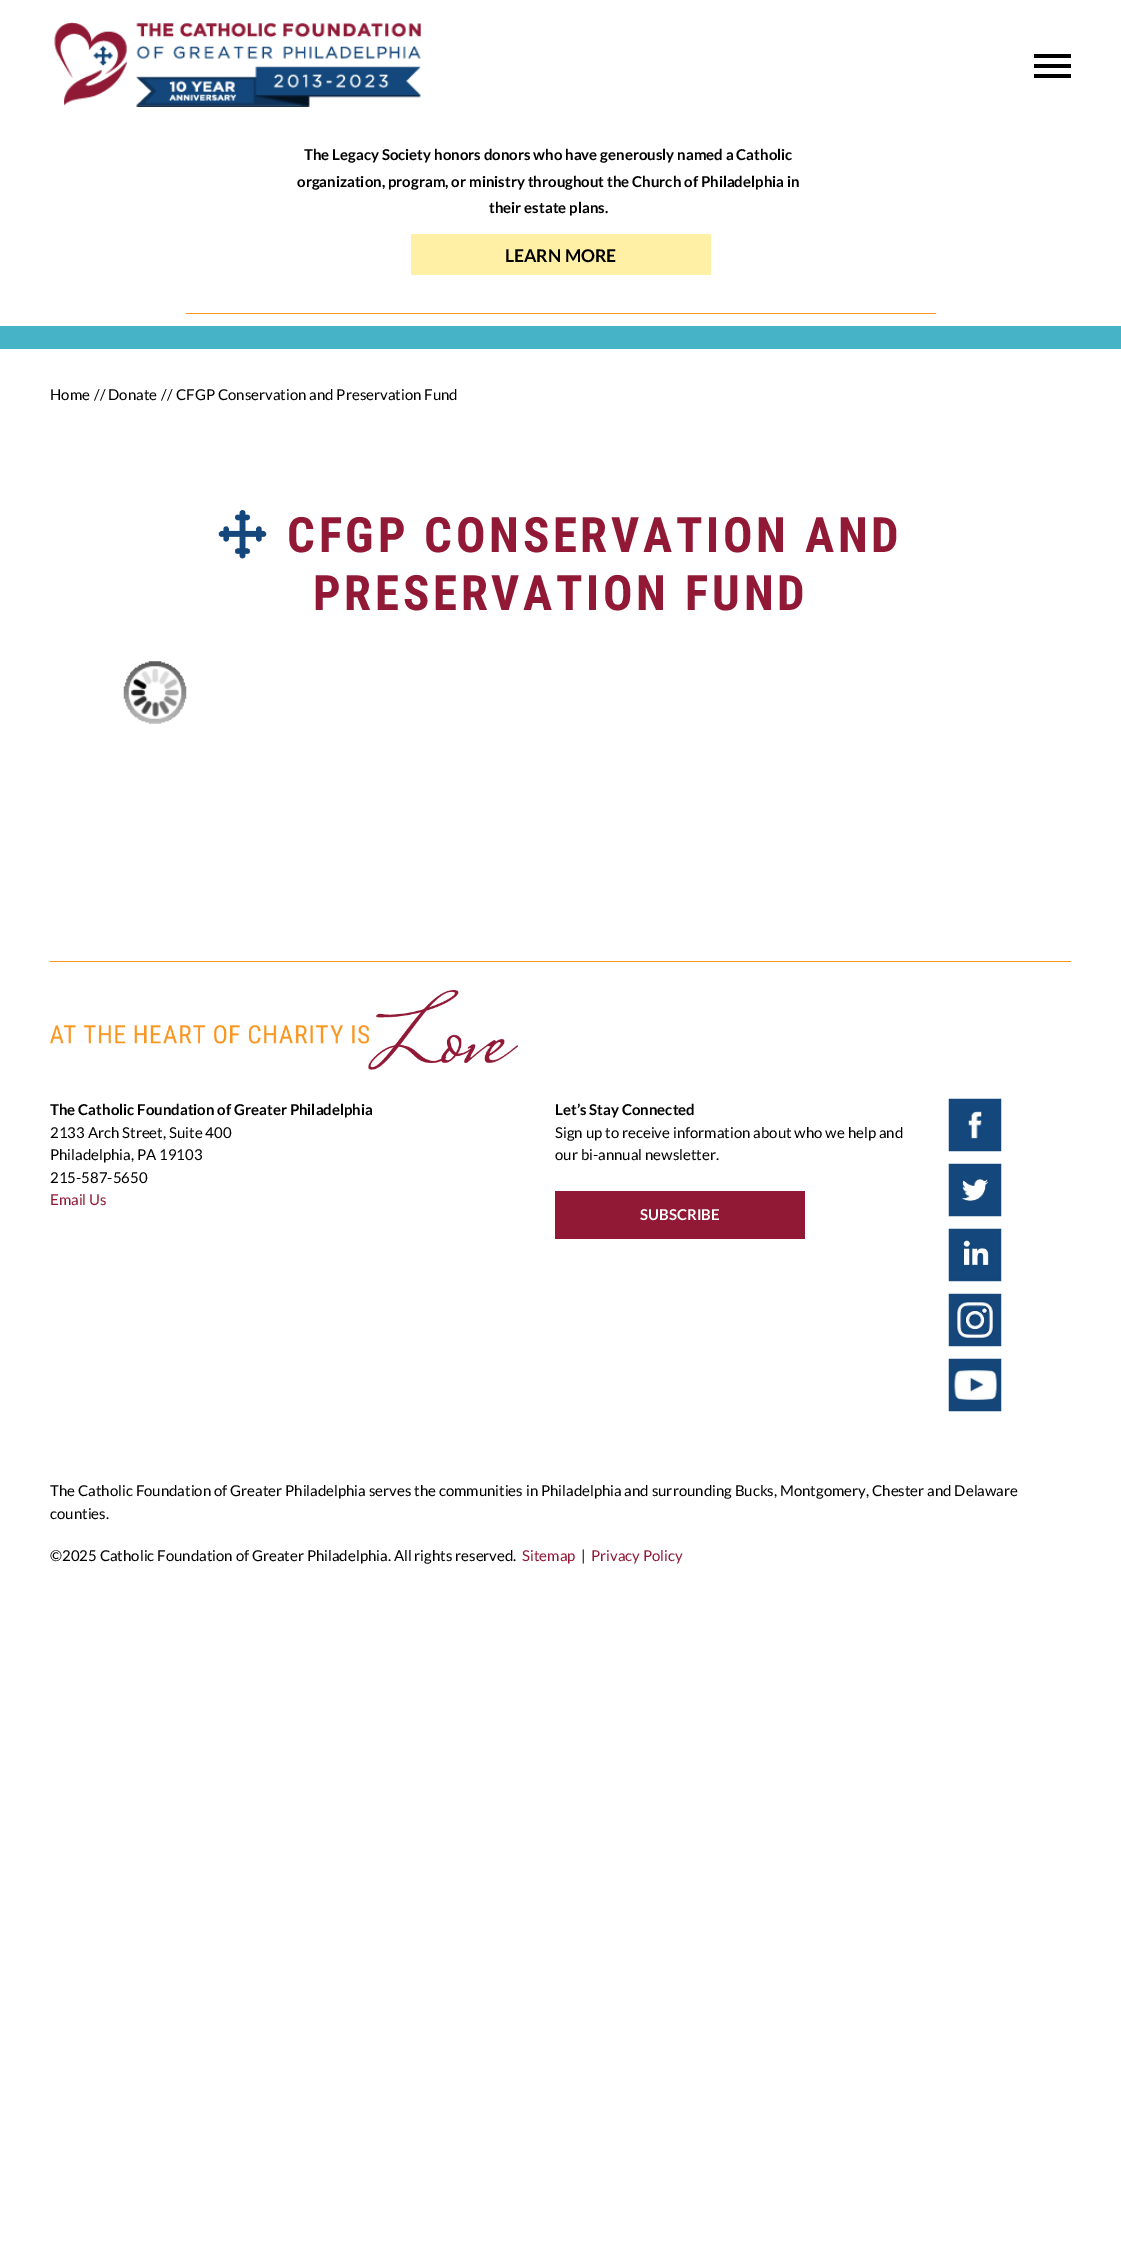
%!PS
<< /PageSize [1121 2243] >> setpagedevice
/mt/moveto load def
/co { dup -16 bitshift 255 div exch dup -8 bitshift 255 and 255 div exch 255 and 255 div setrgbcolor } def
/fn { [ exch dup neg 0 0 3 -1 roll 0 0 ] selectfont } def
/tx { co fn moveto show } def
/bx { co rectfill } def
/im { 5 dict begin { /h /w /y /x /name } { exch def } forall
  gsave x y translate w h scale
  w h 8 [w 0 0 h 0 0] name (r) file false 3 colorimage grestore end } def
0 2243 translate 1 -1 scale
4 setmiterlimit
0 0 1121 2243 16#FFFFFF bx
(media/1.raw) 54 22 367 85 im
1034 54 37 4 16#000000 bx
1034 64 37 4 16#000000 bx
1034 74 37 4 16#000000 bx
186 313 750 1 16#F89620 bx
411 234 300 41 16#FFF0A5 bx
0 326 1121 23 16#46B4C6 bx
(media/2.raw) 218 510 49 49 im
(media/3.raw) 123 661 64 63 im
50 961 1021 1 16#F89620 bx
(media/4.raw) 50 990 468 80 im
555 1191 250 48 16#911935 bx
(media/5.raw) 948 1098 54 54 im
(media/6.raw) 948 1163 54 54 im
(media/7.raw) 948 1228 54 54 im
(media/8.raw) 948 1293 54 54 im
(media/9.raw) 948 1358 54 54 im
(The Legacy Society honors donors who have generously named a Catholic) 304 160 /Lato-Bold 14.98 16#000000 tx
(organization, program, or ministry throughout the Church of Philadelphia in) 297 187 /Lato-Bold 14.98 16#000000 tx
(their estate plans.) 489 213 /Lato-Bold 14.98 16#000000 tx
(LEARN MORE) 505 262 /Lato-Bold 17.5 16#000000 tx
(Home) 50 400 /Lato-Regular 14.98 16#000000 tx
(//) 94 400 /Lato-Regular 14.98 16#000000 tx
(Donate) 108 400 /Lato-Regular 14.98 16#000000 tx
(//) 161 400 /Lato-Regular 14.98 16#000000 tx
(CFGP Conservation and Preservation Fund) 176 400 /Lato-Regular 14.98 16#000000 tx
/RobotoCondensed-Bold 48.75 fn
16#911935 co
287 552 mt 3.75 0 (CFGP CONSERVATION AND) ashow
313 610 mt 3.75 0 (PRESERVATION FUND) ashow
(The Catholic Foundation of Greater Philadelphia) 50 1115 /Lato-Bold 14.98 16#000000 tx
(2133 Arch Street, Suite 400) 50 1138 /Lato-Regular 14.98 16#000000 tx
(Philadelphia, PA 19103) 50 1160 /Lato-Regular 14.98 16#000000 tx
(215-587-5650) 50 1183 /Lato-Regular 14.98 16#000000 tx
(Email Us) 50 1205 /Lato-Regular 14.98 16#911935 tx
(Let’s Stay Connected) 555 1115 /Lato-Bold 14.98 16#000000 tx
(Sign up to receive information about who we help and) 555 1138 /Lato-Regular 14.98 16#000000 tx
(our bi-annual newsletter.) 555 1160 /Lato-Regular 14.98 16#000000 tx
(SUBSCRIBE) 640 1220 /Lato-Bold 14.98 16#FFFFFF tx
(The Catholic Foundation of Greater Philadelphia serves the communities in Philadelphia and surrounding Bucks, Montgomery, Chester and Delaware) 50 1496 /Lato-Regular 14.98 16#000000 tx
(counties.) 50 1519 /Lato-Regular 14.98 16#000000 tx
(©2025 Catholic Foundation of Greater Philadelphia. All rights reserved.) 50 1561 /Lato-Regular 14.98 16#000000 tx
(Sitemap) 522 1561 /Lato-Regular 14.98 16#911935 tx
(|) 581 1561 /Lato-Regular 14.98 16#000000 tx
(Privacy Policy) 591 1561 /Lato-Regular 14.98 16#911935 tx
showpage
